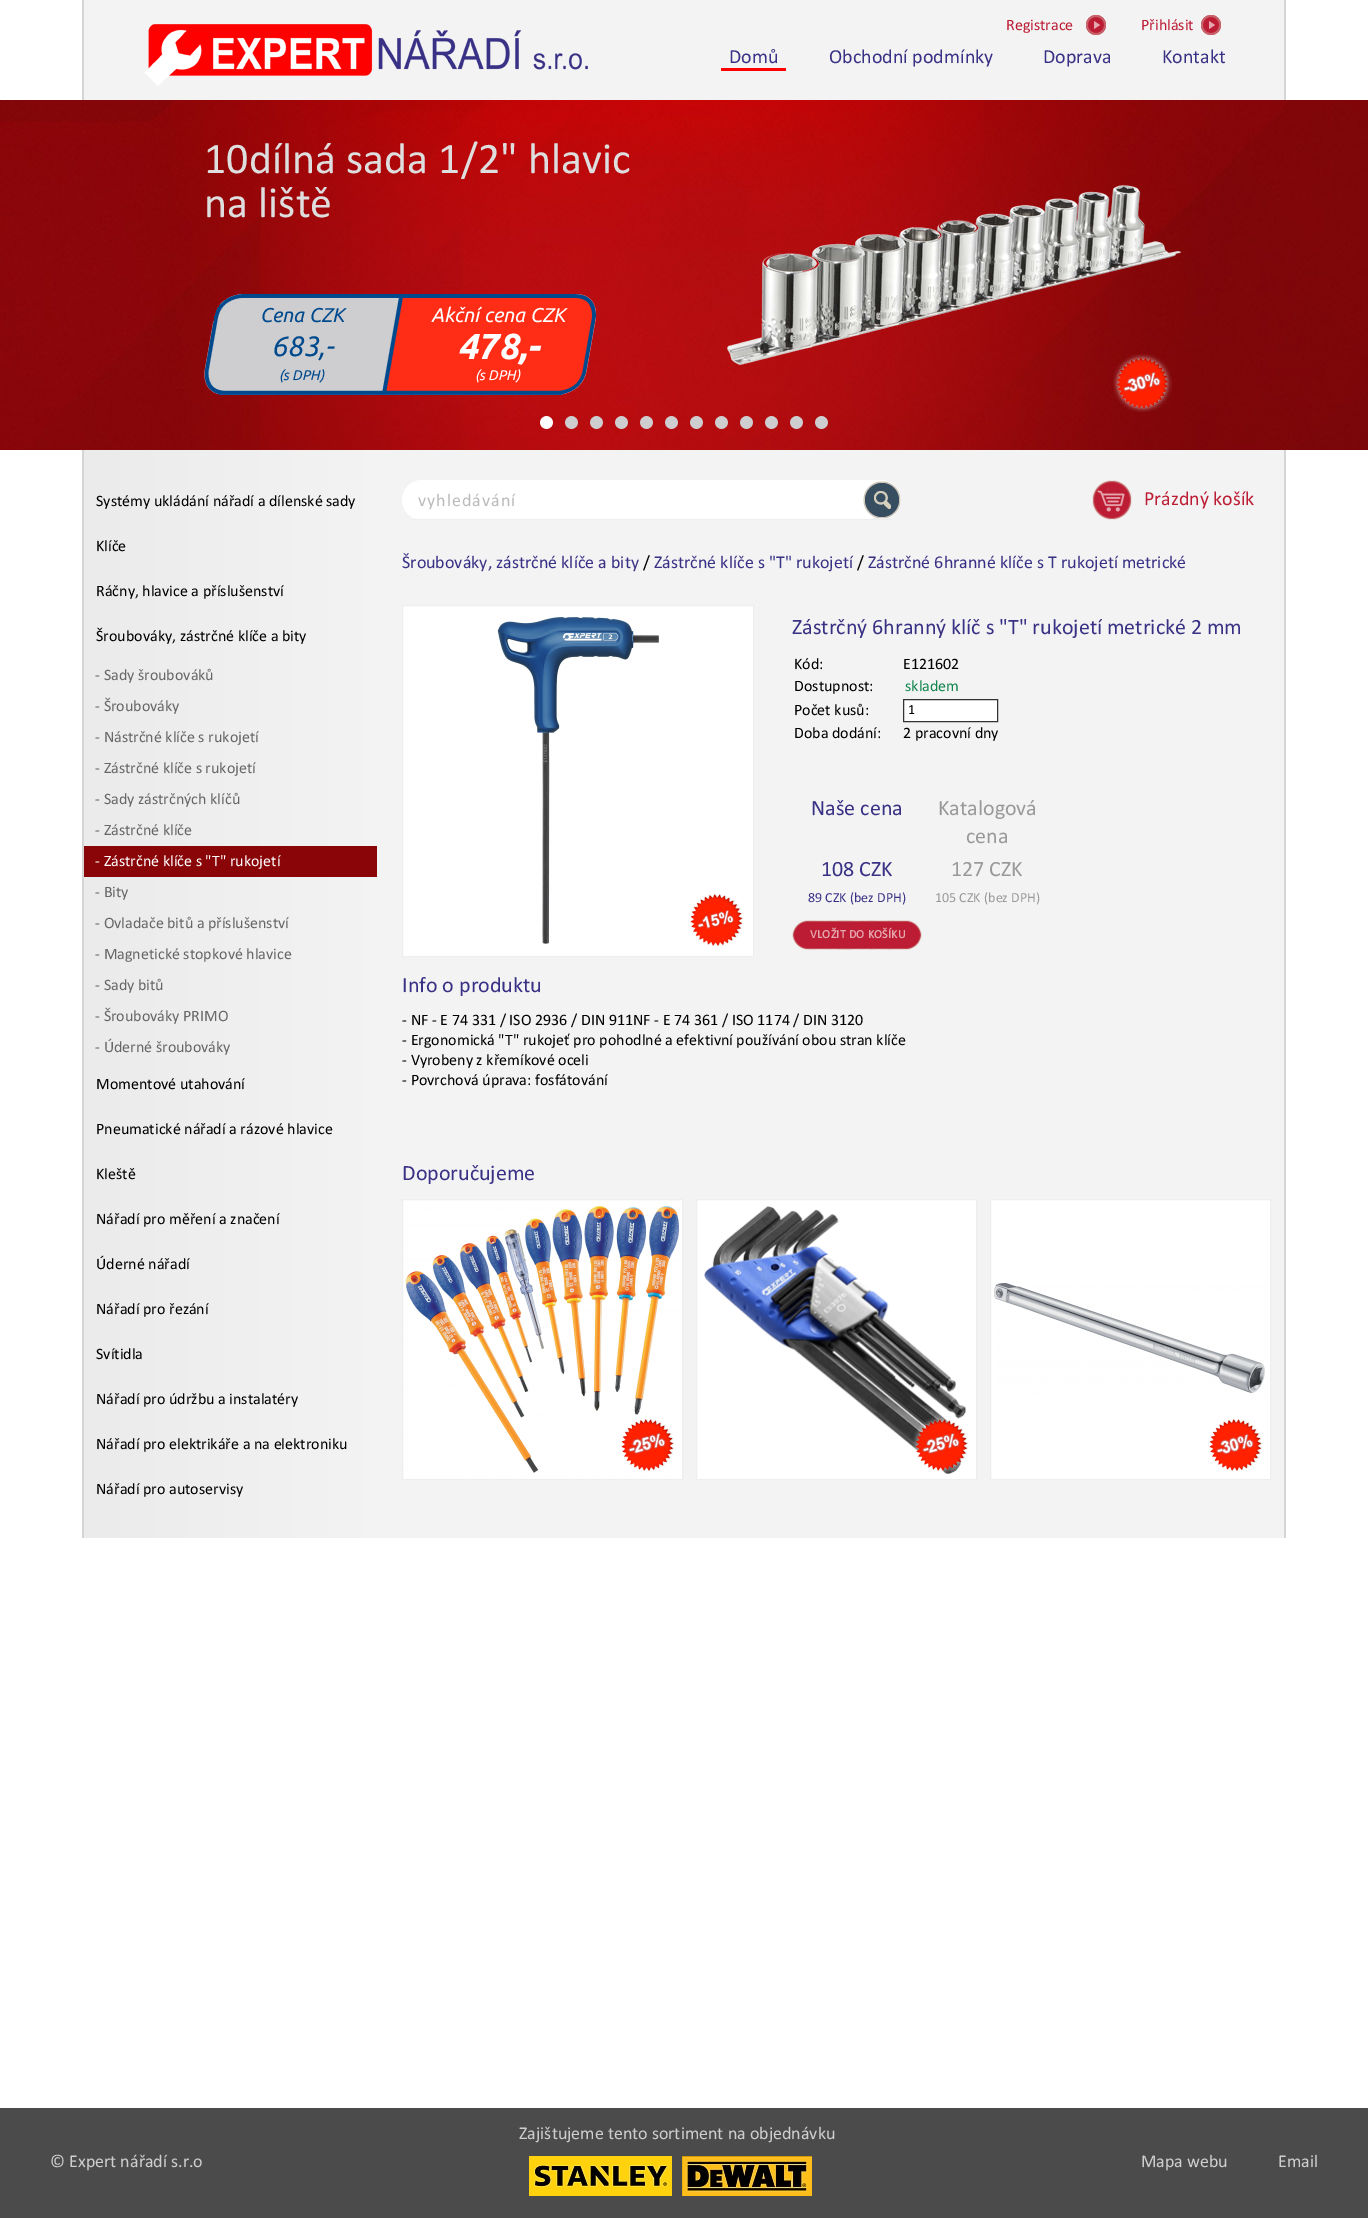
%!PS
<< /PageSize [1368 2218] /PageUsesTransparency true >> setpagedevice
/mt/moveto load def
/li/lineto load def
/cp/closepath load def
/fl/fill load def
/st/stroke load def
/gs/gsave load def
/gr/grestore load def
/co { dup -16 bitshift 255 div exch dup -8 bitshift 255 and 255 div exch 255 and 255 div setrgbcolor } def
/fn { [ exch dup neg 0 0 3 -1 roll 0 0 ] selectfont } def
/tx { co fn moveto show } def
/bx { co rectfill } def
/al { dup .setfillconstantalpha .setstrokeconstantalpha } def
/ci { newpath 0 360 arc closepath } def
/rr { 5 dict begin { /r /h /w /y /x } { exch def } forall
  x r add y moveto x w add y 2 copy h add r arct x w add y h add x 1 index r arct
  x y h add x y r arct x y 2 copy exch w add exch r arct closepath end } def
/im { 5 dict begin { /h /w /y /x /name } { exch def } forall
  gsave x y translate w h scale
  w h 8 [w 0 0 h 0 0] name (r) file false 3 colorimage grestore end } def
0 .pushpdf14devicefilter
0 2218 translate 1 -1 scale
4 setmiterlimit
0 0 1368 2218 16#FFFFFF bx
84 0 1200 100 16#F3F3F3 bx
1284 0 2 100 16#D5D5D5 bx
82 0 2 100 16#D5D5D5 bx
(media/1.raw) 144 24 444 62 im
(media/2.raw) 1086 15 20 20 im
(media/2.raw) 1201 15 20 20 im
721 68 65 3 16#FF0000 bx
(media/3.raw) 0 100 1368 350 im
(media/4.raw) 204 294 392 101 im
(media/5.raw) 727 185 454 180 im
(media/6.raw) 1113 354 59 58 im
(media/7.raw) 540 416 13 13 im
(media/8.raw) 565 416 13 13 im
(media/9.raw) 590 416 13 13 im
(media/10.raw) 615 416 13 13 im
(media/11.raw) 640 416 13 13 im
(media/12.raw) 665 416 13 13 im
(media/13.raw) 690 416 13 13 im
(media/14.raw) 715 416 13 13 im
(media/15.raw) 740 416 13 13 im
(media/16.raw) 765 416 13 13 im
(media/17.raw) 790 416 13 13 im
(media/18.raw) 815 416 13 13 im
364 450 920 1088 16#F3F3F3 bx
1284 450 2 1088 16#D5D5D5 bx
82 450 2 1088 16#D5D5D5 bx
gs 84 450 mt 364 450 li 364 1538 li 84 1538 li cp clip newpath
<< /ShadingType 2 /ColorSpace /DeviceRGB /Coords [84 994 364 994] /Extend [true true] /Function << /FunctionType 2 /Domain [0 1] /C0 [.922 .922 .922] /C1 [.953 .953 .953] /N 1 >> >> shfill gr
84 846 293 31 16#8A0508 bx
16#FFFFFF co
402 480 499 40 20 rr fl
412 519 479 1 16#EEEEEE bx
0.3 al
16#EFEFEF co
882 500 19 ci fl
1 al
(media/19.raw) 863 481 38 37 im
873 518 19 1 16#EEEEEE bx
(media/20.raw) 1092 480 40 40 im
16#FFFFFF co
402.5 605.5 mt 753.5 605.5 li 753.5 956.5 li 402.5 956.5 li cp gs fl gr
16#EEEEEE co
st
(media/21.raw) 497 617 247 329 im
16#FFFFFF co
903.5 699.5 mt 997.5 699.5 li 997.5 721.5 li 903.5 721.5 li cp gs fl gr
16#333333 co
st
(media/22.raw) 792 920 130 30 im
16#FFFFFF co
402.5 1199.5 mt 682.5 1199.5 li 682.5 1479.5 li 402.5 1479.5 li cp gs fl gr
16#EEEEEE co
st
(media/23.raw) 405 1205 275 268 im
16#FFFFFF co
696.5 1199.5 mt 976.5 1199.5 li 976.5 1479.5 li 696.5 1479.5 li cp gs fl gr
16#EEEEEE co
st
(media/24.raw) 704 1206 265 268 im
16#FFFFFF co
990.5 1199.5 mt 1270.5 1199.5 li 1270.5 1479.5 li 990.5 1479.5 li cp gs fl gr
16#EEEEEE co
st
(media/25.raw) 994 1282 271 189 im
0 2108 1368 110 16#4B4B4B bx
(media/26.raw) 529 2156 143 40 im
(media/27.raw) 682 2156 130 40 im
(Registrace) 1006 30 /Calibri-Regular 16 16#BC1C34 tx
(Přihlásit) 1141 30 /Calibri-Regular 16 16#BC1C34 tx
(Domů) 729 63 /Calibri-Regular 20 16#393185 tx
(Obchodní podmínky) 829 63 /Calibri-Regular 20 16#393185 tx
(Doprava) 1043 63 /Calibri-Regular 20 16#393185 tx
(Kontakt) 1162 63 /Calibri-Regular 20 16#393185 tx
(10dílná sada 1/2" hlavic) 204 173 /Calibri-Regular 44 16#DEDEDF tx
(na liště) 204 217 /Calibri-Regular 44 16#DEDEDF tx
(Cena CZK) 260 322 /Ubuntu-Italic 20 16#00498D tx
(683,-) 271 356 /Ubuntu-Italic 28 16#00498D tx
(\(s DPH\)) 279 380 /Ubuntu-Italic 14 16#00498D tx
(Akční cena CZK) 431 322 /Ubuntu-Italic 20 16#FFFFFF tx
(478,-) 457 359 /Ubuntu-BoldItalic 36 16#FFFFFF tx
(\(s DPH\)) 475 380 /Ubuntu-Italic 14 16#FFFFFF tx
(Systémy ukládání nářadí a dílenské sady) 96 506 /Calibri-Regular 16 16#000000 tx
(Klíče) 96 551 /Calibri-Regular 16 16#000000 tx
(Ráčny, hlavice a příslušenství) 96 596 /Calibri-Regular 16 16#000000 tx
(Šroubováky, zástrčné klíče a bity) 96 641 /Calibri-Regular 16 16#000000 tx
(- Sady šroubováků) 95 680 /Calibri-Regular 16 16#676767 tx
(- Šroubováky) 95 711 /Calibri-Regular 16 16#676767 tx
(- Nástrčné klíče s rukojetí) 95 742 /Calibri-Regular 16 16#676767 tx
(- Zástrčné klíče s rukojetí) 95 773 /Calibri-Regular 16 16#676767 tx
(- Sady zástrčných klíčů) 95 804 /Calibri-Regular 16 16#676767 tx
(- Zástrčné klíče) 95 835 /Calibri-Regular 16 16#676767 tx
(- Zástrčné klíče s "T" rukojetí) 95 866 /Calibri-Regular 16 16#FFFFFF tx
(- Bity) 95 897 /Calibri-Regular 16 16#676767 tx
(- Ovladače bitů a příslušenství) 95 928 /Calibri-Regular 16 16#676767 tx
(- Magnetické stopkové hlavice) 95 959 /Calibri-Regular 16 16#676767 tx
(- Sady bitů) 95 990 /Calibri-Regular 16 16#676767 tx
(- Šroubováky PRIMO) 95 1021 /Calibri-Regular 16 16#676767 tx
(- Úderné šroubováky) 95 1052 /Calibri-Regular 16 16#676767 tx
(Momentové utahování) 96 1089 /Calibri-Regular 16 16#000000 tx
(Pneumatické nářadí a rázové hlavice) 96 1134 /Calibri-Regular 16 16#000000 tx
(Kleště) 96 1179 /Calibri-Regular 16 16#000000 tx
(Nářadí pro měření a značení) 96 1224 /Calibri-Regular 16 16#000000 tx
(Úderné nářadí) 96 1269 /Calibri-Regular 16 16#000000 tx
(Nářadí pro řezání) 96 1314 /Calibri-Regular 16 16#000000 tx
(Svítidla) 96 1359 /Calibri-Regular 16 16#000000 tx
(Nářadí pro údržbu a instalatéry) 96 1404 /Calibri-Regular 16 16#000000 tx
(Nářadí pro elektrikáře a na elektroniku) 96 1449 /Calibri-Regular 16 16#000000 tx
(Nářadí pro autoservisy) 96 1494 /Calibri-Regular 16 16#000000 tx
/Calibri-Regular 18 fn
16#BBBBBB co
418 506 mt 1 0 (vyhledávání) ashow
(Prázdný košík) 1144 505 /Calibri-Regular 20 16#BC1C34 tx
(Šroubováky, zástrčné klíče a bity) 402 568 /Calibri-Regular 18 16#393185 tx
(/) 643 568 /Calibri-Regular 18 16#000000 tx
(Zástrčné klíče s "T" rukojetí) 654 568 /Calibri-Regular 18 16#393185 tx
(/) 857 568 /Calibri-Regular 18 16#000000 tx
(Zástrčné 6hranné klíče s T rukojetí metrické) 868 568 /Calibri-Regular 18 16#393185 tx
(Zástrčný 6hranný klíč s "T" rukojetí metrické 2 mm) 792 634 /Calibri-Regular 22 16#393185 tx
(Kód:) 794 669 /Calibri-Regular 16 16#000000 tx
(E121602) 903 669 /Calibri-Regular 16 16#000000 tx
(Dostupnost:) 794 691 /Calibri-Regular 16 16#000000 tx
(skladem) 905 691 /Calibri-Regular 16 16#12864F tx
(Počet kusů:) 794 715 /Calibri-Regular 16 16#000000 tx
(1) 908 714 /Calibri-Regular 14 16#000000 tx
(Doba dodání:) 794 738 /Calibri-Regular 16 16#000000 tx
(2 pracovní dny) 903 738 /Calibri-Regular 16 16#000000 tx
(Naše cena) 811 815 /Calibri-Regular 22 16#393185 tx
(Katalogová) 938 815 /Calibri-Regular 22 16#999999 tx
(cena) 966 843 /Calibri-Regular 22 16#999999 tx
(108 CZK) 821 876 /Calibri-Regular 22 16#393185 tx
(127 CZK) 951 876 /Calibri-Regular 22 16#999999 tx
(89 CZK \(bez DPH\)) 808 902 /Calibri-Regular 14 16#393185 tx
(105 CZK \(bez DPH\)) 935 902 /Calibri-Regular 14 16#999999 tx
/Calibri-Bold 12 fn
16#E5A6AD co
810 938 mt .25 0 (VLOŽIT DO KOŠÍKU) ashow
(Info o produktu) 402 992 /Calibri-Regular 22 16#393185 tx
(- NF - E 74 331 / ISO 2936 / DIN 911NF - E 74 361 / ISO 1174 / DIN 3120) 402 1025 /Calibri-Regular 16 16#000000 tx
(- Ergonomická "T" rukojeť pro pohodlné a efektivní používání obou stran klíče) 402 1045 /Calibri-Regular 16 16#000000 tx
(- Vyrobeny z křemíkové oceli) 402 1065 /Calibri-Regular 16 16#000000 tx
(- Povrchová úprava: fosfátování) 402 1085 /Calibri-Regular 16 16#000000 tx
(Doporučujeme) 402 1180 /Calibri-Regular 22 16#393185 tx
(Zajištujeme tento sortiment na objednávku) 519 2139 /Calibri-Regular 18 16#CECED0 tx
(© Expert nářadí s.r.o) 50 2167 /Calibri-Regular 18 16#CECED0 tx
(Mapa webu) 1141 2167 /Calibri-Regular 18 16#CECED0 tx
(Email) 1278 2167 /Calibri-Regular 18 16#CECED0 tx
.poppdf14devicefilter showpage
